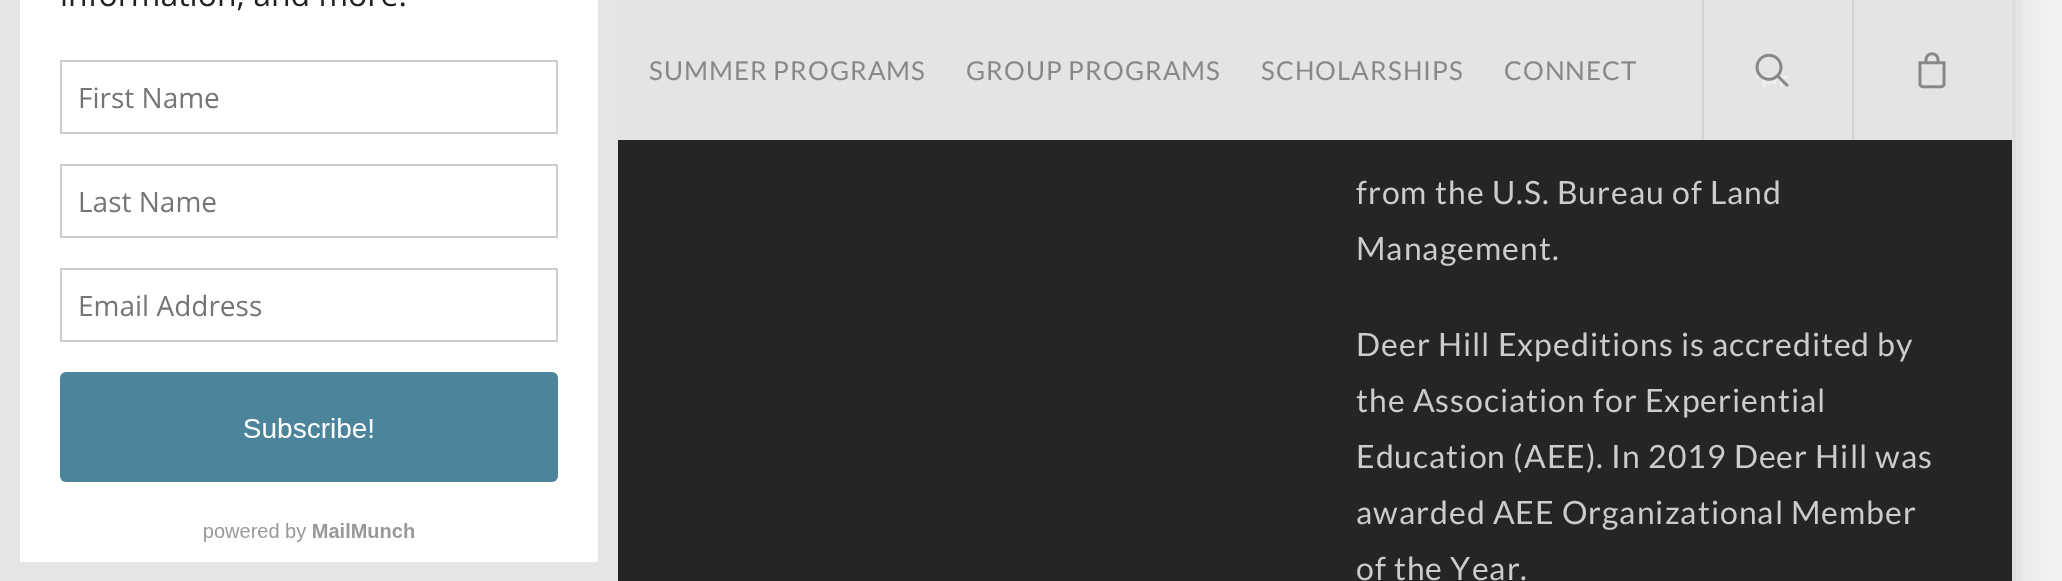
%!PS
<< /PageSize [2062 581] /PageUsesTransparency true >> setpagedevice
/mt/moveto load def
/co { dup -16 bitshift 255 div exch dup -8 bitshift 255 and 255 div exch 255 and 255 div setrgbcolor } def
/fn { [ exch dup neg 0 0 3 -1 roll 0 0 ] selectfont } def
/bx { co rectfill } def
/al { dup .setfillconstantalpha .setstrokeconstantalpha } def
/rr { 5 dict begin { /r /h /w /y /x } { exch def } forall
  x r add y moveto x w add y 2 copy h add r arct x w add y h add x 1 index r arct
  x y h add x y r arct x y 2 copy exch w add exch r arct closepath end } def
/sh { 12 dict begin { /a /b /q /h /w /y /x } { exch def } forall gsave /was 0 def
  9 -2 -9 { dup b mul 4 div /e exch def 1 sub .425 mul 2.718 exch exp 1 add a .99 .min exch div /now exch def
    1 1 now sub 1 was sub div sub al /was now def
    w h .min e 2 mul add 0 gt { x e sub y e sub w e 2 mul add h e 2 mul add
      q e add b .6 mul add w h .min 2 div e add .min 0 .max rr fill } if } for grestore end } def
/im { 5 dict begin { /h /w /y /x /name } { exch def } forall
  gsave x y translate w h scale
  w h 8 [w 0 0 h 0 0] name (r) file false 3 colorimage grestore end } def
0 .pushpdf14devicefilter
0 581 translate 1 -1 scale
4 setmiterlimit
0 0 2062 581 16#F1F1F1 bx
16#000000 co
52 -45 1960 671 0 15 .15 sh
(media/1.raw) 0 0 618 581 im
618 0 1394 581 16#252525 bx
0.93 al
618 0 1394 140 16#F2F2F2 bx
0.07 al
1702 0 2 140 16#000000 bx
1 al
(media/2.raw) 1755 53 34 34 im
0.07 al
1852 0 2 140 16#000000 bx
1 al
(media/3.raw) 1918 52 28 37 im
/Lato-Regular 26 fn
16#888888 co
649 80 mt 1 0 (SUMMER PROGRAMS) ashow
966 80 mt 1 0 (GROUP PROGRAMS) ashow
1261 80 mt 1 0 (SCHOLARSHIPS) ashow
1504 80 mt 1 0 (CONNECT) ashow
/Lato-Regular 32 fn
16#CCCCCC co
1356 204 mt 1 0 (from the U.S. Bureau of Land) ashow
1356 260 mt 1 0 (Management.) ashow
1356 356 mt 1 0 (Deer Hill Expeditions is accredited by) ashow
1356 412 mt 1 0 (the Association for Experiential) ashow
1356 468 mt 1 0 (Education \(AEE\). In 2019 Deer Hill was) ashow
1356 524 mt 1 0 (awarded AEE Organizational Member) ashow
1356 580 mt 1 0 (of the Year.) ashow
.poppdf14devicefilter showpage
